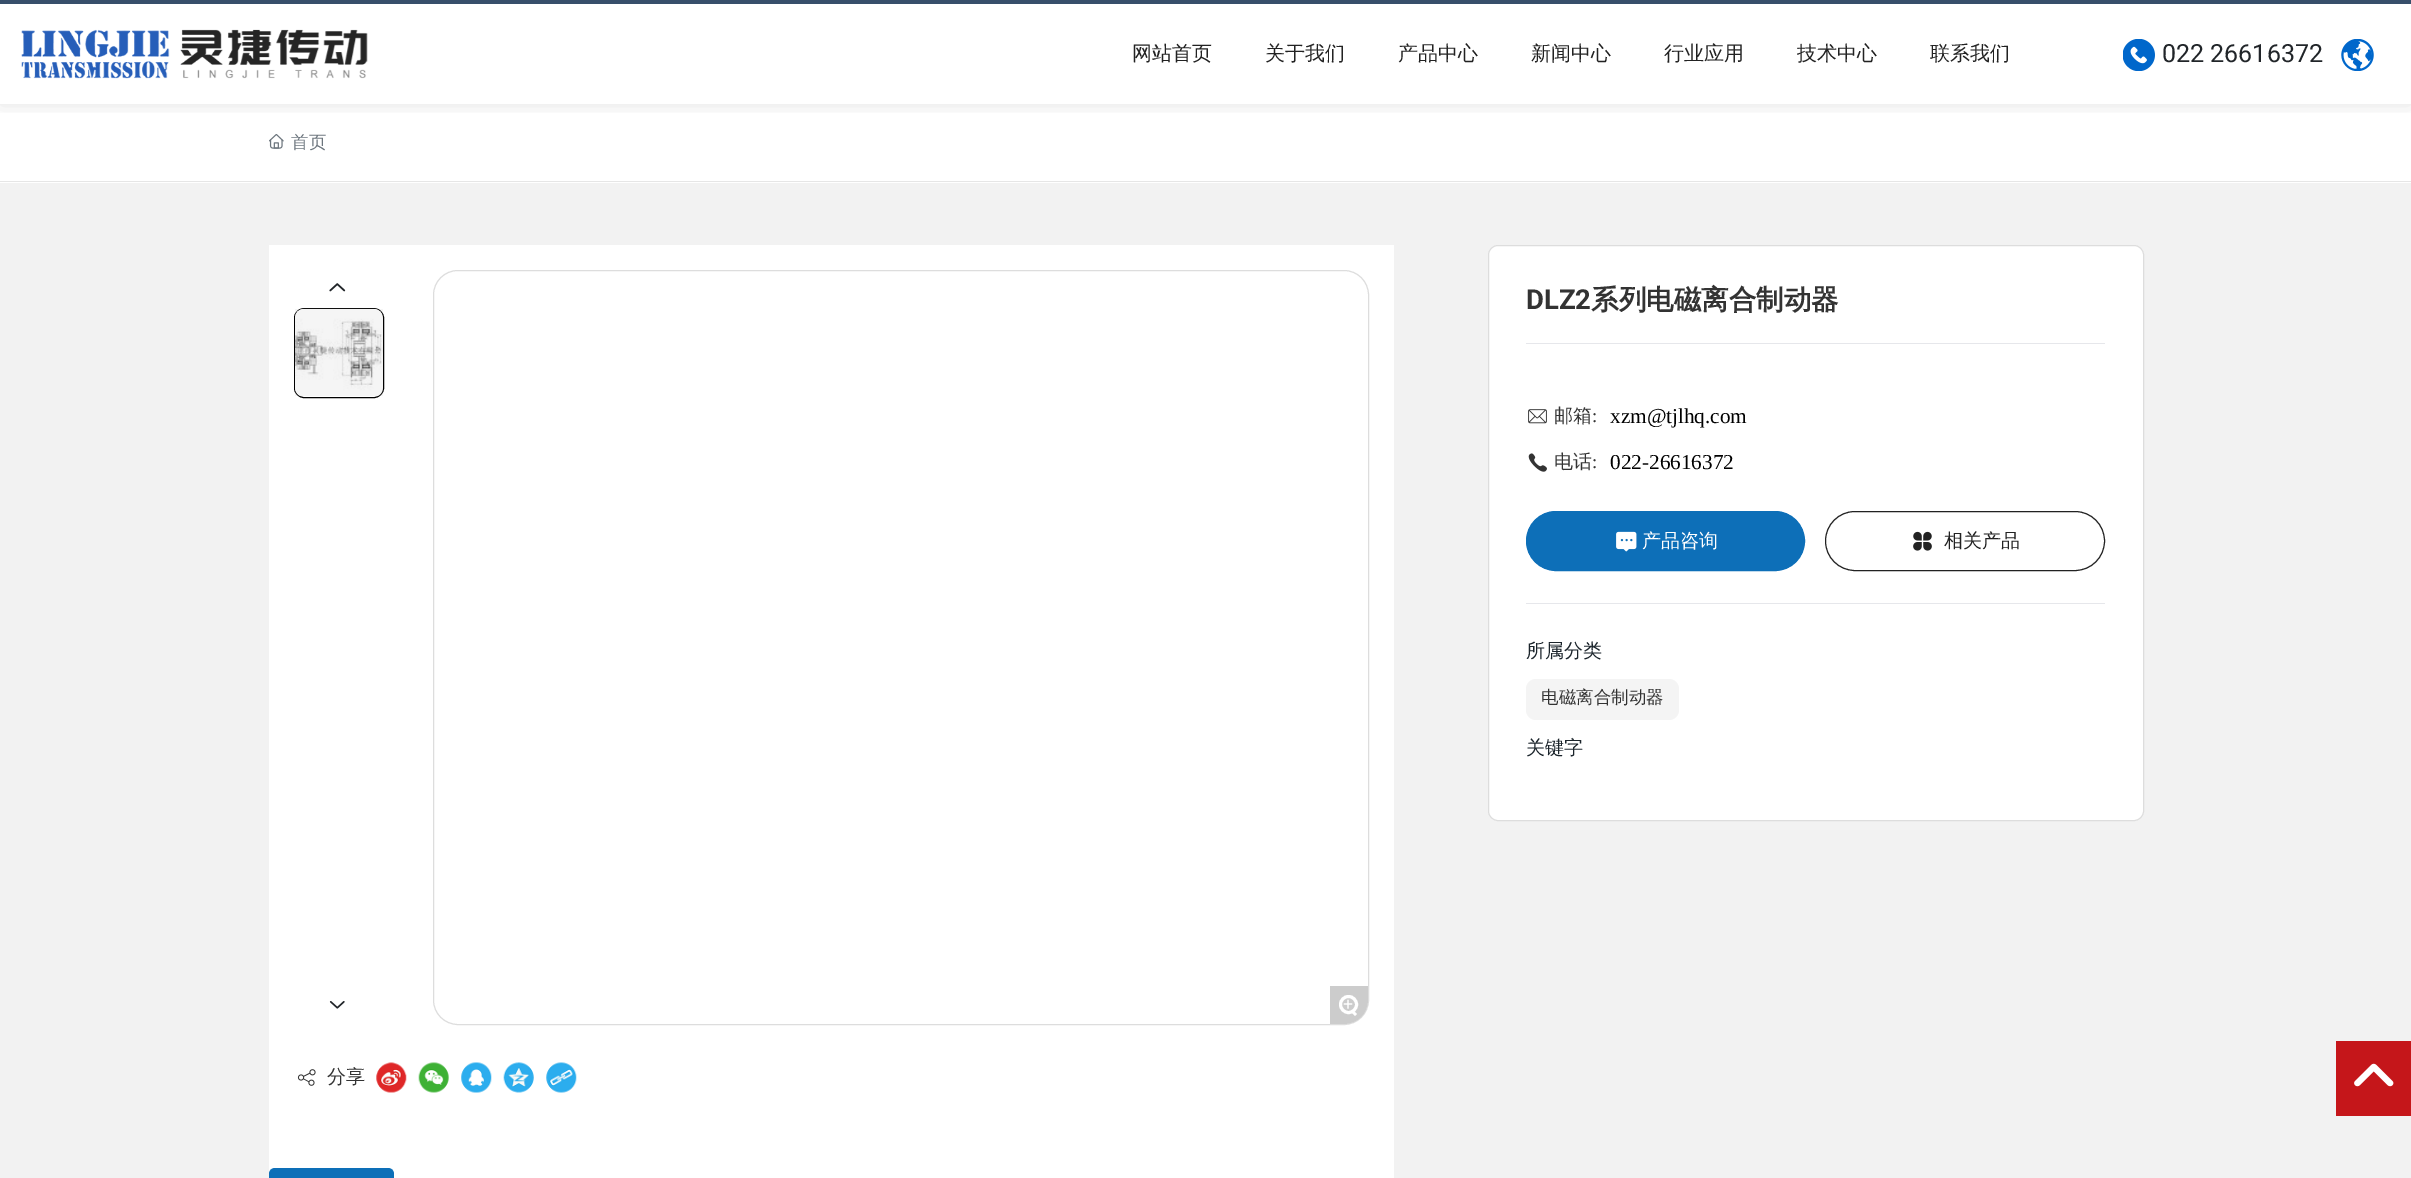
%!PS
<< /PageSize [2411 1178] /PageUsesTransparency true >> setpagedevice
/mt/moveto load def
/li/lineto load def
/ct/curveto load def
/cp/closepath load def
/fl/fill load def
/st/stroke load def
/gs/gsave load def
/gr/grestore load def
/lw/setlinewidth load def
/co { dup -16 bitshift 255 div exch dup -8 bitshift 255 and 255 div exch 255 and 255 div setrgbcolor } def
/fn { [ exch dup neg 0 0 3 -1 roll 0 0 ] selectfont } def
/tx { co fn moveto show } def
/bx { co rectfill } def
/al { dup .setfillconstantalpha .setstrokeconstantalpha } def
/ci { newpath 0 360 arc closepath } def
/rr { 5 dict begin { /r /h /w /y /x } { exch def } forall
  x r add y moveto x w add y 2 copy h add r arct x w add y h add x 1 index r arct
  x y h add x y r arct x y 2 copy exch w add exch r arct closepath end } def
/sh { 12 dict begin { /a /b /q /h /w /y /x } { exch def } forall gsave /was 0 def
  9 -2 -9 { dup b mul 4 div /e exch def 1 sub .425 mul 2.718 exch exp 1 add a .99 .min exch div /now exch def
    1 1 now sub 1 was sub div sub al /was now def
    w h .min e 2 mul add 0 gt { x e sub y e sub w e 2 mul add h e 2 mul add
      q e add b .6 mul add w h .min 2 div e add .min 0 .max rr fill } if } for grestore end } def
/im { 5 dict begin { /h /w /y /x /name } { exch def } forall
  gsave x y translate w h scale
  w h 8 [w 0 0 h 0 0] name (r) file false 3 colorimage grestore end } def
0 .pushpdf14devicefilter
0 1178 translate 1 -1 scale
4 setmiterlimit
0 0 2411 1178 16#FFFFFF bx
(media/4.raw) 269 134 15 15 im
gs
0 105 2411 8 rectclip
16#000000 co
0 0 2411 105 0 9.5 .1 sh
gr
0 0 2411 4 16#374F6B bx
0 104 2411 1 16#F1F1F1 bx
(media/1.raw) 21 29 347 50 im
(media/2.raw) 2123 39 32 32 im
(media/3.raw) 2341 39 33 32 im
0 181 2411 1 16#E6E6E6 bx
0 183 2411 995 16#F2F2F2 bx
16#FFFFFF co
1488.5 245.5 655 575 9.5 rr gs fl gr
16#DDDDDD co
st
1526 343 579 1 16#E6E7EB bx
(media/5.raw) 1528 409 19 15 im
(media/6.raw) 1528 453 19 19 im
16#0D6FB8 co
1526.5 511.5 278 59 29.5 rr gs fl gr
st
(media/7.raw) 1616 531 21 21 im
16#222222 co
1825.5 511.5 279 59 29.5 rr st
(media/8.raw) 1913 531 19 20 im
1526 603 579 1 16#E6E7EB bx
16#F4F4F4 co
1526 679 153 41 10 rr fl
269 245 1125 933 16#FFFFFF bx
(media/9.raw) 329 283 17 9 im
(media/10.raw) 329 1001 16 8 im
16#000000 co
294.5 308.5 89 89 9.5 rr st
(media/11.raw) 295 308 88 88 im
0.04 al
295 309 88 87 16#000000 bx
1 al
16#DDDDDD co
433.5 270.5 935 754 24.5 rr st
16#CCCCCC co
1330 986 mt 1368 986 li 1368 1000 li 1368 1013.5 1357.5 1024 1344 1024 ct 1330 1024 li cp fl
16#FFFFFF co
3 lw
1348.5 1004.5 8 ci st
1352.5 1010 mt 1357 1014 li 1355 1016 li 1350.5 1011.5 li cp fl
(media/12.raw) 297 1069 19 17 im
(media/13.raw) 376 1062 31 31 im
(media/14.raw) 418 1062 31 31 im
(media/15.raw) 461 1062 31 31 im
(media/16.raw) 503 1062 31 31 im
(media/17.raw) 546 1062 31 31 im
16#0D6FB8 co
275 1168 mt 388 1168 li 391.5 1168 394 1170.5 394 1174 ct 394 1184 li 269 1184 li 269 1174 li 269 1170.5 271.5 1168 275 1168 ct cp fl
2336 1041 75 75 16#C5161A bx
(media/18.raw) 2354 1063 40 24 im
(网站首页) 1132 60 /WenQuanYiZenHei-Medium 20 16#222222 tx
(关于我们) 1265 60 /WenQuanYiZenHei-Medium 20 16#222222 tx
(产品中心) 1398 60 /WenQuanYiZenHei-Medium 20 16#222222 tx
(新闻中心) 1531 60 /WenQuanYiZenHei-Medium 20 16#222222 tx
(行业应用) 1664 60 /WenQuanYiZenHei-Medium 20 16#222222 tx
(技术中心) 1797 60 /WenQuanYiZenHei-Medium 20 16#222222 tx
(联系我们) 1930 60 /WenQuanYiZenHei-Medium 20 16#222222 tx
(022 26616372) 2162 62 /Roboto-Regular 25 16#212529 tx
(首页) 291 148 /WenQuanYiZenHei-Medium 17.5 16#6C757D tx
(DLZ2) 1526 309 /Roboto-Bold 27.5 16#333333 tx
(系列电磁离合制动器) 1591 309 /WenQuanYiZenHei-Bold 27.5 16#333333 tx
(邮箱) 1554 422 /WenQuanYiZenHei-Medium 19 16#333333 tx
(:) 1592 422 /LiberationSerif-Regular 19 16#333333 tx
(xzm@tjlhq.com) 1610 423 /LiberationSerif-Regular 21.25 16#000000 tx
(电话) 1554 468 /WenQuanYiZenHei-Medium 19 16#333333 tx
(:) 1592 468 /LiberationSerif-Regular 19 16#333333 tx
(022-26616372) 1610 469 /LiberationSerif-Regular 21.25 16#000000 tx
(产品咨询) 1642 547 /WenQuanYiZenHei-Medium 19 16#FFFFFF tx
(相关产品) 1944 547 /WenQuanYiZenHei-Medium 19 16#222222 tx
(所属分类) 1526 657 /WenQuanYiZenHei-Medium 19 16#1B242B tx
(电磁离合制动器) 1541 703 /WenQuanYiZenHei-Medium 17.5 16#333333 tx
(关键字) 1526 754 /WenQuanYiZenHei-Medium 19 16#1B242B tx
(+) 1343 1010 /Roboto-Regular 17.5 16#FFFFFF tx
(分享) 327 1083 /WenQuanYiZenHei-Medium 19 16#333333 tx
.poppdf14devicefilter showpage
